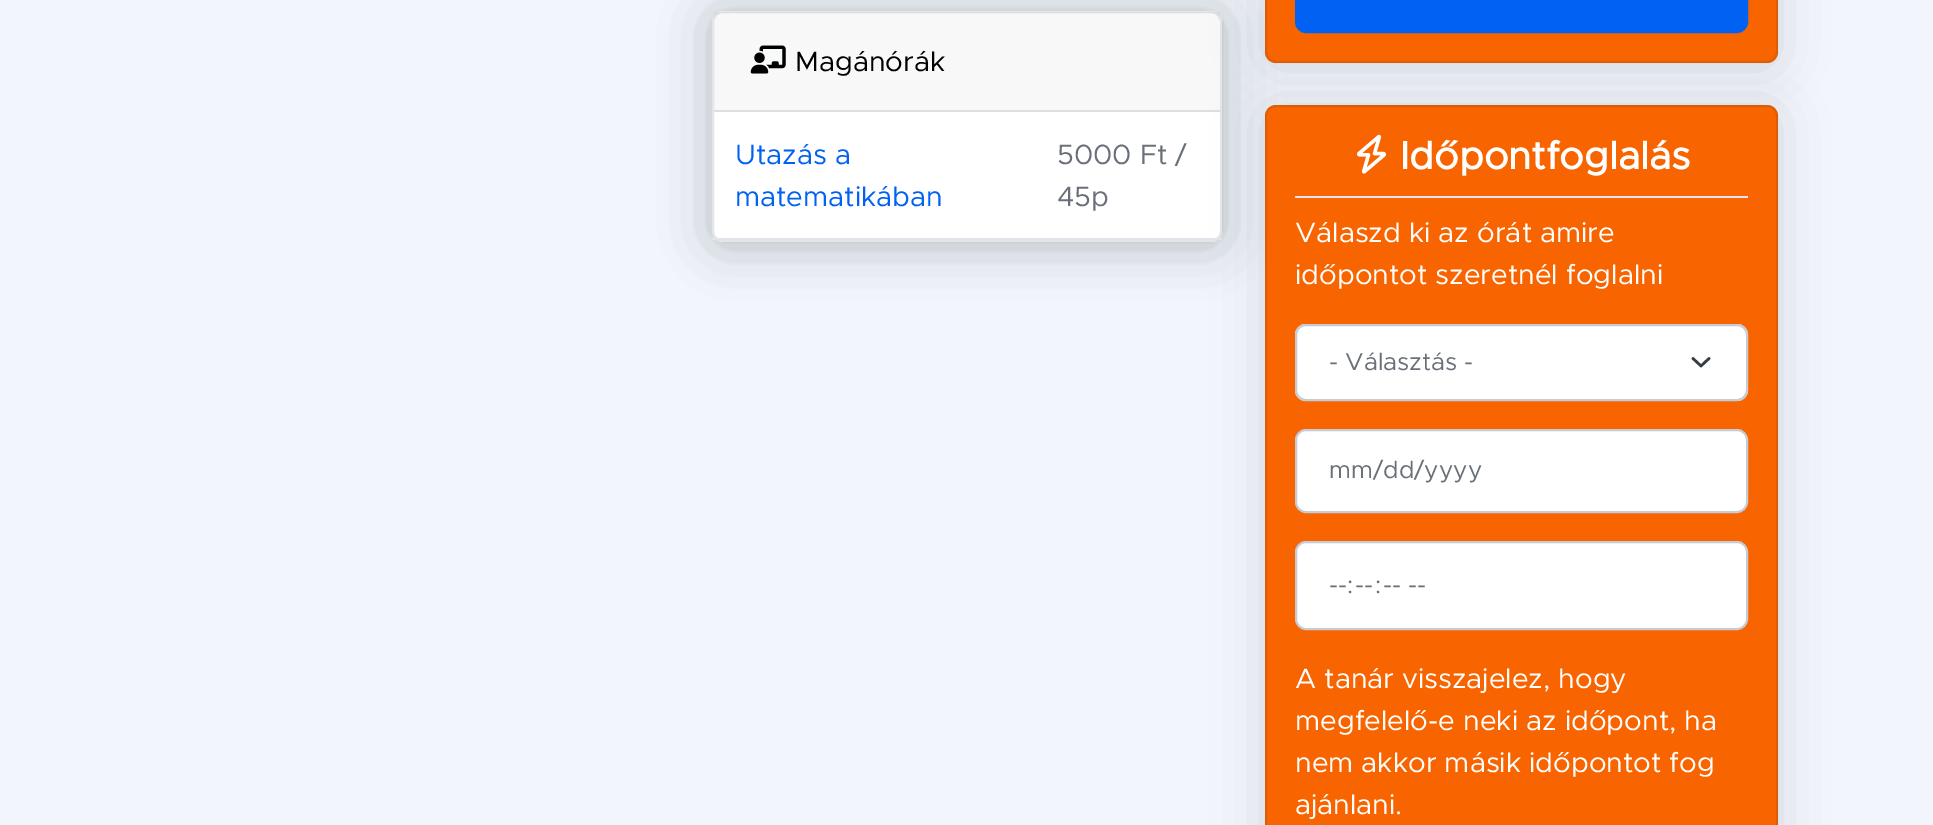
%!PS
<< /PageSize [1933 825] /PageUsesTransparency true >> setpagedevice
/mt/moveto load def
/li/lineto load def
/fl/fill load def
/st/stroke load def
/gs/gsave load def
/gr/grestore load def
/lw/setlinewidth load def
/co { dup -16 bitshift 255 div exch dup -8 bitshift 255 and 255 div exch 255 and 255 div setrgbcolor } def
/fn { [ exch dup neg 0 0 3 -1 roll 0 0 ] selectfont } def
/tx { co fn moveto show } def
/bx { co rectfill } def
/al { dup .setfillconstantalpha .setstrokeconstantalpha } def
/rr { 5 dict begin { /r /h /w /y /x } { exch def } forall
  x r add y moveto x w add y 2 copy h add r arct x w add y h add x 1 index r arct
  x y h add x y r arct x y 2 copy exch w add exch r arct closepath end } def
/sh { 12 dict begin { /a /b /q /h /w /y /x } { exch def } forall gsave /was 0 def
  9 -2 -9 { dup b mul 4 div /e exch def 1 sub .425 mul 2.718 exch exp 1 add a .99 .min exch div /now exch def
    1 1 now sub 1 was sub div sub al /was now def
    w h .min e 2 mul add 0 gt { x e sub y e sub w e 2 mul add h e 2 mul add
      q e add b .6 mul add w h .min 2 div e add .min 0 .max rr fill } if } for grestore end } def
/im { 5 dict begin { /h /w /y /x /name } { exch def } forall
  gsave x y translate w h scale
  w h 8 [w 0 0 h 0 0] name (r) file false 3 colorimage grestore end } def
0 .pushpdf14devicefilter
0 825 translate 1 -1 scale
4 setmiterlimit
0 0 1933 825 16#F2F6FC bx
16#212832 co
711 12 512 235 11 24.5 .15 sh
16#FFFFFF co
711 9 512 234 11 rr fl
0.12 al
16#212832 co
2 lw
712 10 510 232 10 rr st
1 al
712 14 510 231 11 24.5 .15 sh
16#FFFFFF co
712 11 510 231 11 rr fl
0.12 al
16#212832 co
713 12 508 229 10 rr st
0.03 al
714 12 506 98 16#212832 bx
1 al
714 110 506 2 16#DDDEE0 bx
(media/1.raw) 750 45 36 29 im
712 238 510 2 16#E0E5EC bx
16#212832 co
1265 -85 513 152 11 24.5 .15 sh
16#F76400 co
1265 -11 513 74 11 rr fl
0.12 al
16#212832 co
1266 -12 511 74 10 rr st
1 al
16#0061F2 co
1296 -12 451 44 10 rr gs fl gr
st
16#212832 co
1265 109 513 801 11 24.5 .15 sh
16#F76400 co
1265 105 513 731 11 rr fl
0.12 al
16#212832 co
1266 106 511 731 10 rr st
1 al
1295 196 453 2 16#E0E5EC bx
(media/2.raw) 1357 134 30 40 im
16#FFFFFF co
1295 324 453 77 11 rr fl
16#363D47 co
2.6 lw
1 setlinecap
1 setlinejoin
1693 358.5 mt 1701 366 li 1709 358.5 li st
16#C5CCD6 co
2 lw
0 setlinecap
0 setlinejoin
1296 325 451 75 10 rr st
16#FFFFFF co
1296 430 451 82 10 rr gs fl gr
16#C5CCD6 co
st
16#FFFFFF co
1296 542 451 87 10 rr gs fl gr
16#C5CCD6 co
st
(Magánórák) 795 71 /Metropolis-Regular 28 16#000000 tx
(Utazás a) 735 164 /Metropolis-Regular 28 16#0061F2 tx
(matematikában) 735 206 /Metropolis-Regular 28 16#0061F2 tx
(5000 Ft /) 1057 164 /Metropolis-Regular 28 16#69707A tx
(45p) 1057 206 /Metropolis-Regular 28 16#69707A tx
(Időpontfoglalás) 1400 169 /Metropolis-Bold 39 16#FFFFFF tx
(Válaszd ki az órát amire) 1295 242 /Metropolis-Regular 28 16#FFFFFF tx
(időpontot szeretnél foglalni) 1295 284 /Metropolis-Regular 28 16#FFFFFF tx
(- Választás -) 1329 370 /Metropolis-Regular 24.5 16#69707A tx
(mm/dd/yyyy) 1329 478 /Metropolis-Regular 24.5 16#69707A tx
(--:) 1329 593 /Metropolis-Regular 24.5 16#69707A tx
(--) 1355 593 /Metropolis-Regular 24.5 16#69707A tx
(:) 1375 593 /Metropolis-Regular 24.5 16#69707A tx
(-- --) 1383 593 /Metropolis-Regular 24.5 16#69707A tx
(A tanár visszajelez, hogy) 1295 688 /Metropolis-Regular 28 16#FFFFFF tx
(megfelelő-e neki az időpont, ha) 1295 730 /Metropolis-Regular 28 16#FFFFFF tx
(nem akkor másik időpontot fog) 1295 772 /Metropolis-Regular 28 16#FFFFFF tx
(ajánlani.) 1295 814 /Metropolis-Regular 28 16#FFFFFF tx
.poppdf14devicefilter showpage
